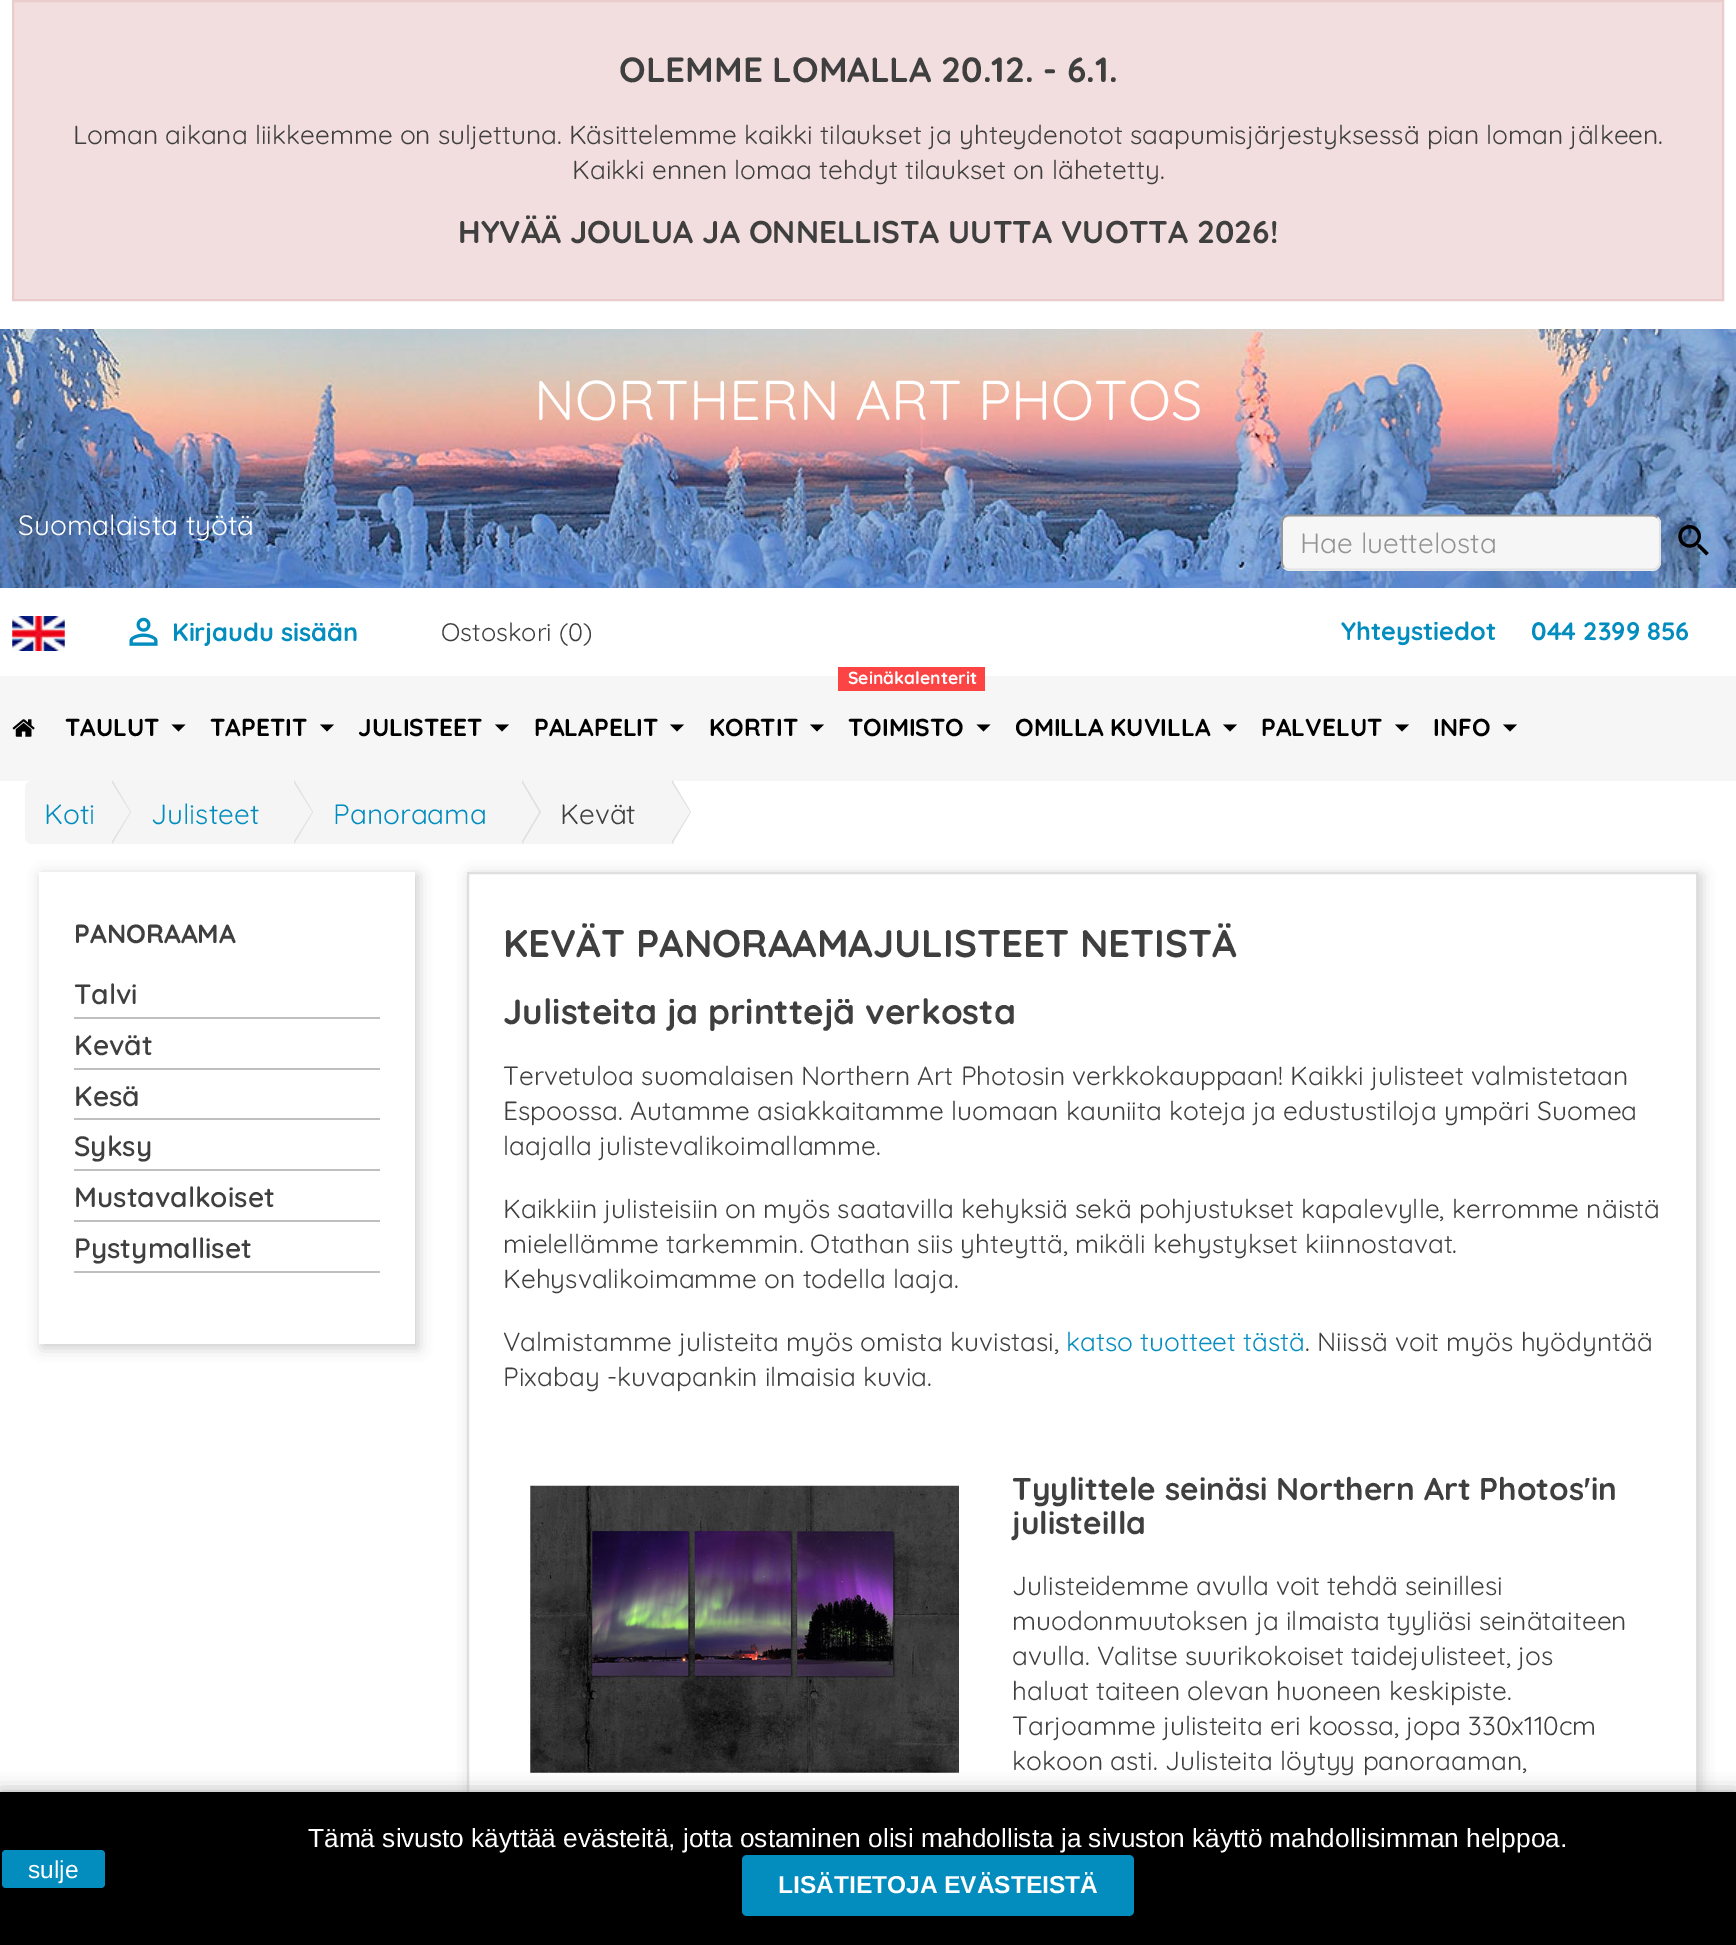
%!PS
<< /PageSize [1736 1945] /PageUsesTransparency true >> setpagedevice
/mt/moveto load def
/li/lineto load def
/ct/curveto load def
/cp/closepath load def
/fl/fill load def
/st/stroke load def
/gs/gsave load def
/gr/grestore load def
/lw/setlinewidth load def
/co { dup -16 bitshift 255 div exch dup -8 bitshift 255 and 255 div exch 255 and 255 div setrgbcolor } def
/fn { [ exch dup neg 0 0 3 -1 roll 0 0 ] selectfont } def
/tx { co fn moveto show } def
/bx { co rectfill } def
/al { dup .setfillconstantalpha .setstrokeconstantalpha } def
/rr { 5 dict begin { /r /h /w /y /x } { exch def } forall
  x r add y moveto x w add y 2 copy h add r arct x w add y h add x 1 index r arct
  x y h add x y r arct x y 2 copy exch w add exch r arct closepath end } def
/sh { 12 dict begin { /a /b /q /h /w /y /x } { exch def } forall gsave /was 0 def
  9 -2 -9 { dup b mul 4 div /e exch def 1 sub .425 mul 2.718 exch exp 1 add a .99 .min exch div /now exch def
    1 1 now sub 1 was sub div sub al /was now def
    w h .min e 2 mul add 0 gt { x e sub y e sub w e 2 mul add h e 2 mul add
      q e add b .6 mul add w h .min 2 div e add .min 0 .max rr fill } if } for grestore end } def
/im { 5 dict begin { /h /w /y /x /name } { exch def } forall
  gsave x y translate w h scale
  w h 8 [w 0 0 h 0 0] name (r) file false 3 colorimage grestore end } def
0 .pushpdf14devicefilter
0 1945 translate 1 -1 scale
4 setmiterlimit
0 0 1736 1945 16#FFFFFF bx
16#F2DEDE co
13 1 mt 1723 1 li 1723 300 li 13 300 li cp gs fl gr
16#EBCCCC co
2 lw
st
(media/1.raw) 0 329 1736 259 im
16#F7F6F6 co
1281 515 380 56 9 rr fl
16#E3E3E3 co
1.8 lw
1657.5 517.5 mt 1659 519 1660 521 1660 523 ct 1660 562 li 1660 564 1659 566 1657.5 567.5 ct 1656 569 1654 569.5 1652 569.5 ct 1290 569.5 li 1287.5 569.5 1285.5 569 1284 567.5 ct st
16#979797 co
1284 567.5 mt 1282.5 566 1282 564 1282 562 ct 1282 523 li 1282 521 1282.5 519 1284 517.5 ct 1285.5 516 1287.5 515.5 1290 515.5 ct 1652 515.5 li 1654 515.5 1656 516 1657.5 517.5 ct st
(media/2.raw) 1678 525 31 31 im
(media/3.raw) 12 616 53 35 im
(media/4.raw) 129 617 29 29 im
0 676 1736 105 16#F6F6F6 bx
(media/5.raw) 12 719 23 18 im
16#000000 co
171.5 724.5 mt 185.5 724.5 li 178.5 731.5 li cp fl
320 724.5 mt 334 724.5 li 327 731.5 li cp fl
495 724.5 mt 509 724.5 li 502 731.5 li cp fl
670 724.5 mt 684 724.5 li 677 731.5 li cp fl
810 724.5 mt 824 724.5 li 817 731.5 li cp fl
838 667 147 24 16#FC4444 bx
16#000000 co
976.5 724.5 mt 990.5 724.5 li 983.5 731.5 li cp fl
1223 724.5 mt 1237 724.5 li 1230 731.5 li cp fl
1395 724.5 mt 1409 724.5 li 1402 731.5 li cp fl
1503 724.5 mt 1517 724.5 li 1510 731.5 li cp fl
16#F5F5F5 co
32 781 mt 114 781 li 114 844 li 32 844 li 28 844 25 841 25 837 ct 25 788 li 25 784 28 781 32 781 ct cp fl
114 781 560 63 16#F5F5F5 bx
16#E0E0E0 co
112 844 mt 112 780 li 131 812 li cp fl
16#F5F5F5 co
110 844 mt 110 780 li 130 812 li cp fl
16#E0E0E0 co
294 844 mt 294 780 li 313 812 li cp fl
16#F5F5F5 co
292 844 mt 292 780 li 312 812 li cp fl
16#E0E0E0 co
522 844 mt 522 780 li 541 812 li cp fl
16#F5F5F5 co
520 844 mt 520 780 li 539 812 li cp fl
16#E0E0E0 co
672 844 mt 672 780 li 691 812 li cp fl
16#F5F5F5 co
670 844 mt 670 780 li 690 812 li cp fl
16#000000 co
42 875 376 473 0 7 .2 sh
39 872 376 472 16#FFFFFF bx
74 1017 306 2 16#BFBFBF bx
74 1068 306 2 16#BFBFBF bx
74 1118 306 2 16#BFBFBF bx
74 1169 306 2 16#BFBFBF bx
74 1220 306 2 16#BFBFBF bx
74 1271 306 2 16#BFBFBF bx
16#000000 co
471 875 1230 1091 0 7 .2 sh
469 874 1227 918 16#FFFFFF bx
16#DFDFDF co
2 lw
468 873 1229 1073 rectstroke
(media/6.raw) 530 1485 429 288 im
16#A6A6A6 co
0 1792 1736 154 0 9 1 sh
0 1792 1736 153 16#000000 bx
16#038DBF co
2 1850 103 38 4 rr fl
742 1855 392 61 5 rr fl
(OLEMME LOMALLA 20.12. - 6.1.) 619 82 /Quicksand-Bold 35 16#3F3F3F tx
(Loman aikana liikkeemme on suljettuna. Käsittelemme kaikki tilaukset ja yhteydenotot saapumisjärjestyksessä pian loman jälkeen.) 73 144 /Quicksand-Regular 26.25 16#3F3F3F tx
(Kaikki ennen lomaa tehdyt tilaukset on lähetetty.) 572 179 /Quicksand-Regular 26.25 16#3F3F3F tx
(HYVÄÄ JOULUA JA ONNELLISTA UUTTA VUOTTA 2026!) 458 243 /Quicksand-Bold 31.5 16#3F3F3F tx
(NORTHERN ART PHOTOS) 534 420 /Quicksand-Regular 56 16#FFFFFF tx
(Suomalaista työtä) 18 535 /Quicksand-Regular 28 16#FFFFFF tx
(Hae luettelosta) 1300 553 /Quicksand-Regular 28 16#949393 tx
(Kirjaudu sisään) 172 641 /Quicksand-Bold 25.25 16#038DBF tx
(Ostoskori \(0\)) 441 641 /Quicksand-Regular 25.25 16#3F3F3F tx
(Yhteystiedot) 1341 640 /Quicksand-Bold 25.25 16#038DBF tx
(044 2399 856) 1531 640 /Quicksand-Bold 25.25 16#038DBF tx
(TAULUT) 65 736 /Quicksand-Bold 24.5 16#000000 tx
(TAPETIT) 210 736 /Quicksand-Bold 24.5 16#000000 tx
(JULISTEET) 358 736 /Quicksand-Bold 24.5 16#000000 tx
(PALAPELIT) 534 736 /Quicksand-Bold 24.5 16#000000 tx
(KORTIT) 709 736 /Quicksand-Bold 24.5 16#000000 tx
(Seinäkalenterit) 848 684 /Quicksand-Bold 17.5 16#FFFFFF tx
(TOIMISTO) 848 736 /Quicksand-Bold 24.5 16#000000 tx
(OMILLA KUVILLA) 1015 736 /Quicksand-Bold 24.5 16#000000 tx
(PALVELUT) 1261 736 /Quicksand-Bold 24.5 16#000000 tx
(INFO) 1433 736 /Quicksand-Bold 24.5 16#000000 tx
(Koti) 44 824 /Quicksand-Regular 28 16#038DBF tx
(Julisteet) 151 824 /Quicksand-Regular 28 16#038DBF tx
(Panoraama) 333 824 /Quicksand-Regular 28 16#038DBF tx
(Kevät) 560 824 /Quicksand-Regular 28 16#3F3F3F tx
(PANORAAMA) 74 943 /Quicksand-Bold 26.25 16#3F3F3F tx
(Talvi) 74 1004 /Quicksand-SemiBold 28 16#3F3F3F tx
(Kevät) 74 1055 /Quicksand-SemiBold 28 16#3F3F3F tx
(Kesä) 74 1106 /Quicksand-SemiBold 28 16#3F3F3F tx
(Syksy) 74 1156 /Quicksand-SemiBold 28 16#3F3F3F tx
(Mustavalkoiset) 74 1207 /Quicksand-SemiBold 28 16#3F3F3F tx
(Pystymalliset) 74 1258 /Quicksand-SemiBold 28 16#3F3F3F tx
(KEVÄT PANORAAMAJULISTEET NETISTÄ) 503 957 /Quicksand-Bold 38.5 16#3F3F3F tx
(Julisteita ja printtejä verkosta) 503 1024 /Quicksand-Bold 35 16#3F3F3F tx
(Tervetuloa suomalaisen Northern Art Photosin verkkokauppaan! Kaikki julisteet valmistetaan) 503 1085 /Quicksand-Regular 26.25 16#3F3F3F tx
(Espoossa. Autamme asiakkaitamme luomaan kauniita koteja ja edustustiloja ympäri Suomea) 503 1120 /Quicksand-Regular 26.25 16#3F3F3F tx
(laajalla julistevalikoimallamme.) 503 1155 /Quicksand-Regular 26.25 16#3F3F3F tx
(Kaikkiin julisteisiin on myös saatavilla kehyksiä sekä pohjustukset kapalevylle, kerromme näistä) 503 1218 /Quicksand-Regular 26.25 16#3F3F3F tx
(mielellämme tarkemmin. Otathan siis yhteyttä, mikäli kehystykset kiinnostavat.) 503 1253 /Quicksand-Regular 26.25 16#3F3F3F tx
(Kehysvalikoimamme on todella laaja.) 503 1288 /Quicksand-Regular 26.25 16#3F3F3F tx
(Valmistamme julisteita myös omista kuvistasi,) 503 1351 /Quicksand-Regular 26.25 16#3F3F3F tx
(katso tuotteet tästä) 1066 1351 /Quicksand-Regular 26.25 16#038DBF tx
(. Niissä voit myös hyödyntää) 1305 1351 /Quicksand-Regular 26.25 16#3F3F3F tx
(Pixabay -kuvapankin ilmaisia kuvia.) 503 1386 /Quicksand-Regular 26.25 16#3F3F3F tx
(Tyylittele seinäsi Northern Art Photos'in) 1012 1500 /Quicksand-Bold 31.5 16#3F3F3F tx
(julisteilla) 1012 1534 /Quicksand-Bold 31.5 16#3F3F3F tx
(Julisteidemme avulla voit tehdä seinillesi) 1012 1595 /Quicksand-Regular 26.25 16#3F3F3F tx
(muodonmuutoksen ja ilmaista tyyliäsi seinätaiteen) 1012 1630 /Quicksand-Regular 26.25 16#3F3F3F tx
(avulla. Valitse suurikokoiset taidejulisteet, jos) 1012 1665 /Quicksand-Regular 26.25 16#3F3F3F tx
(haluat taiteen olevan huoneen keskipiste.) 1012 1700 /Quicksand-Regular 26.25 16#3F3F3F tx
(Tarjoamme julisteita eri koossa, jopa 330x110cm) 1012 1735 /Quicksand-Regular 26.25 16#3F3F3F tx
(kokoon asti. Julisteita löytyy panoraaman,) 1012 1770 /Quicksand-Regular 26.25 16#3F3F3F tx
(sulje) 28 1878 /LiberationSans-Regular 24.5 16#FFFFFF tx
(Tämä sivusto käyttää evästeitä, jotta ostaminen olisi mahdollista ja sivuston käyttö mahdollisimman helppoa.) 308 1847 /LiberationSans-Regular 26.25 16#FFFFFF tx
(LISÄTIETOJA EVÄSTEISTÄ) 778 1893 /LiberationSans-Bold 24.5 16#FFFFFF tx
.poppdf14devicefilter showpage
